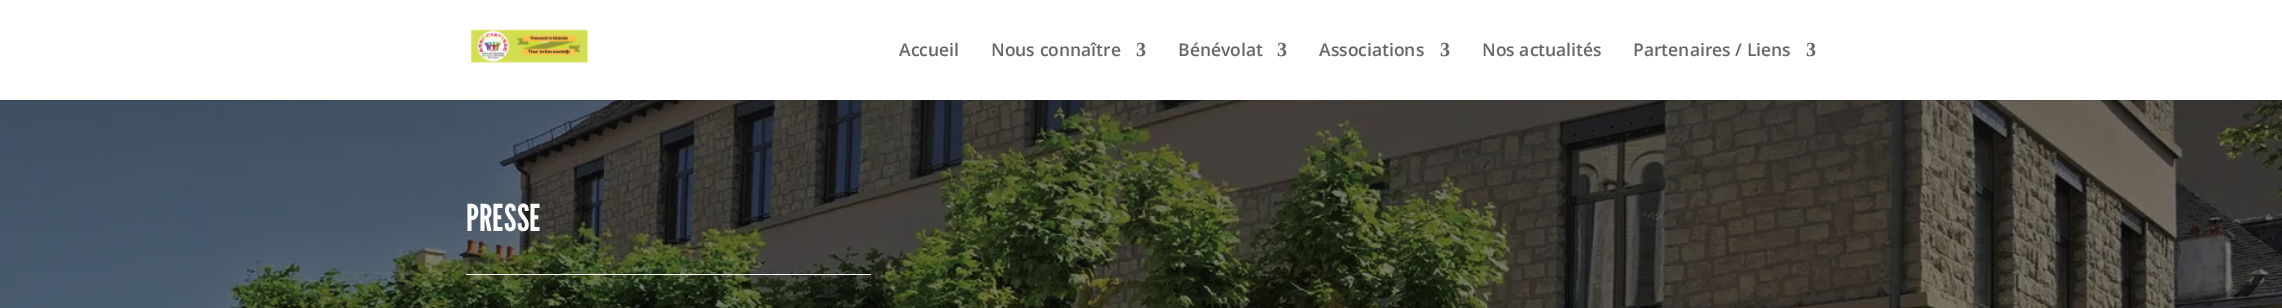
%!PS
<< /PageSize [2282 308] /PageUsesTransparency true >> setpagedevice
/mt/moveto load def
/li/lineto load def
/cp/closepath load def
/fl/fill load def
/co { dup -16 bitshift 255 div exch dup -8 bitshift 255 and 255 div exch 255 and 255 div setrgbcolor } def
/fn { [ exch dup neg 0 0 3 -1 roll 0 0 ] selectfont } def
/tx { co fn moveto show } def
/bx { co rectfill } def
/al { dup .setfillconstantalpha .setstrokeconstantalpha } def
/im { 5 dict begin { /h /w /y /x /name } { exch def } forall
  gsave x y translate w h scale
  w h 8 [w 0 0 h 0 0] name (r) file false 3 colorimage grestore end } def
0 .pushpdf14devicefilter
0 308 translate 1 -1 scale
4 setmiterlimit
0 0 2282 308 16#FFFFFF bx
(media/2.raw) 0 100 2282 208 im
0.1 al
16#000000 co
0 100 mt 0 101 li 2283 101 li 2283 1 li 2282 1 li 2282 100 li cp fl
1 al
(media/1.raw) 471 29 117 34 im
466 274 405 1 16#FFFFFF bx
(Accueil) 899 56 /OpenSans-SemiBold 17.5 16#666666 tx
(Nous connaître) 991 56 /OpenSans-SemiBold 17.5 16#666666 tx
(3) 1136 56 /LiberationSerif-Bold 20 16#666666 tx
(Bénévolat) 1178 56 /OpenSans-SemiBold 17.5 16#666666 tx
(3) 1277 56 /LiberationSerif-Bold 20 16#666666 tx
(Associations) 1319 56 /OpenSans-SemiBold 17.5 16#666666 tx
(3) 1440 56 /LiberationSerif-Bold 20 16#666666 tx
(Nos actualités) 1482 56 /OpenSans-SemiBold 17.5 16#666666 tx
(Partenaires / Liens) 1633 56 /OpenSans-SemiBold 17.5 16#666666 tx
(3) 1806 56 /LiberationSerif-Bold 20 16#666666 tx
(PRESSE) 466 231 /LeagueGothic-Regular 37 16#FFFFFF tx
.poppdf14devicefilter showpage
